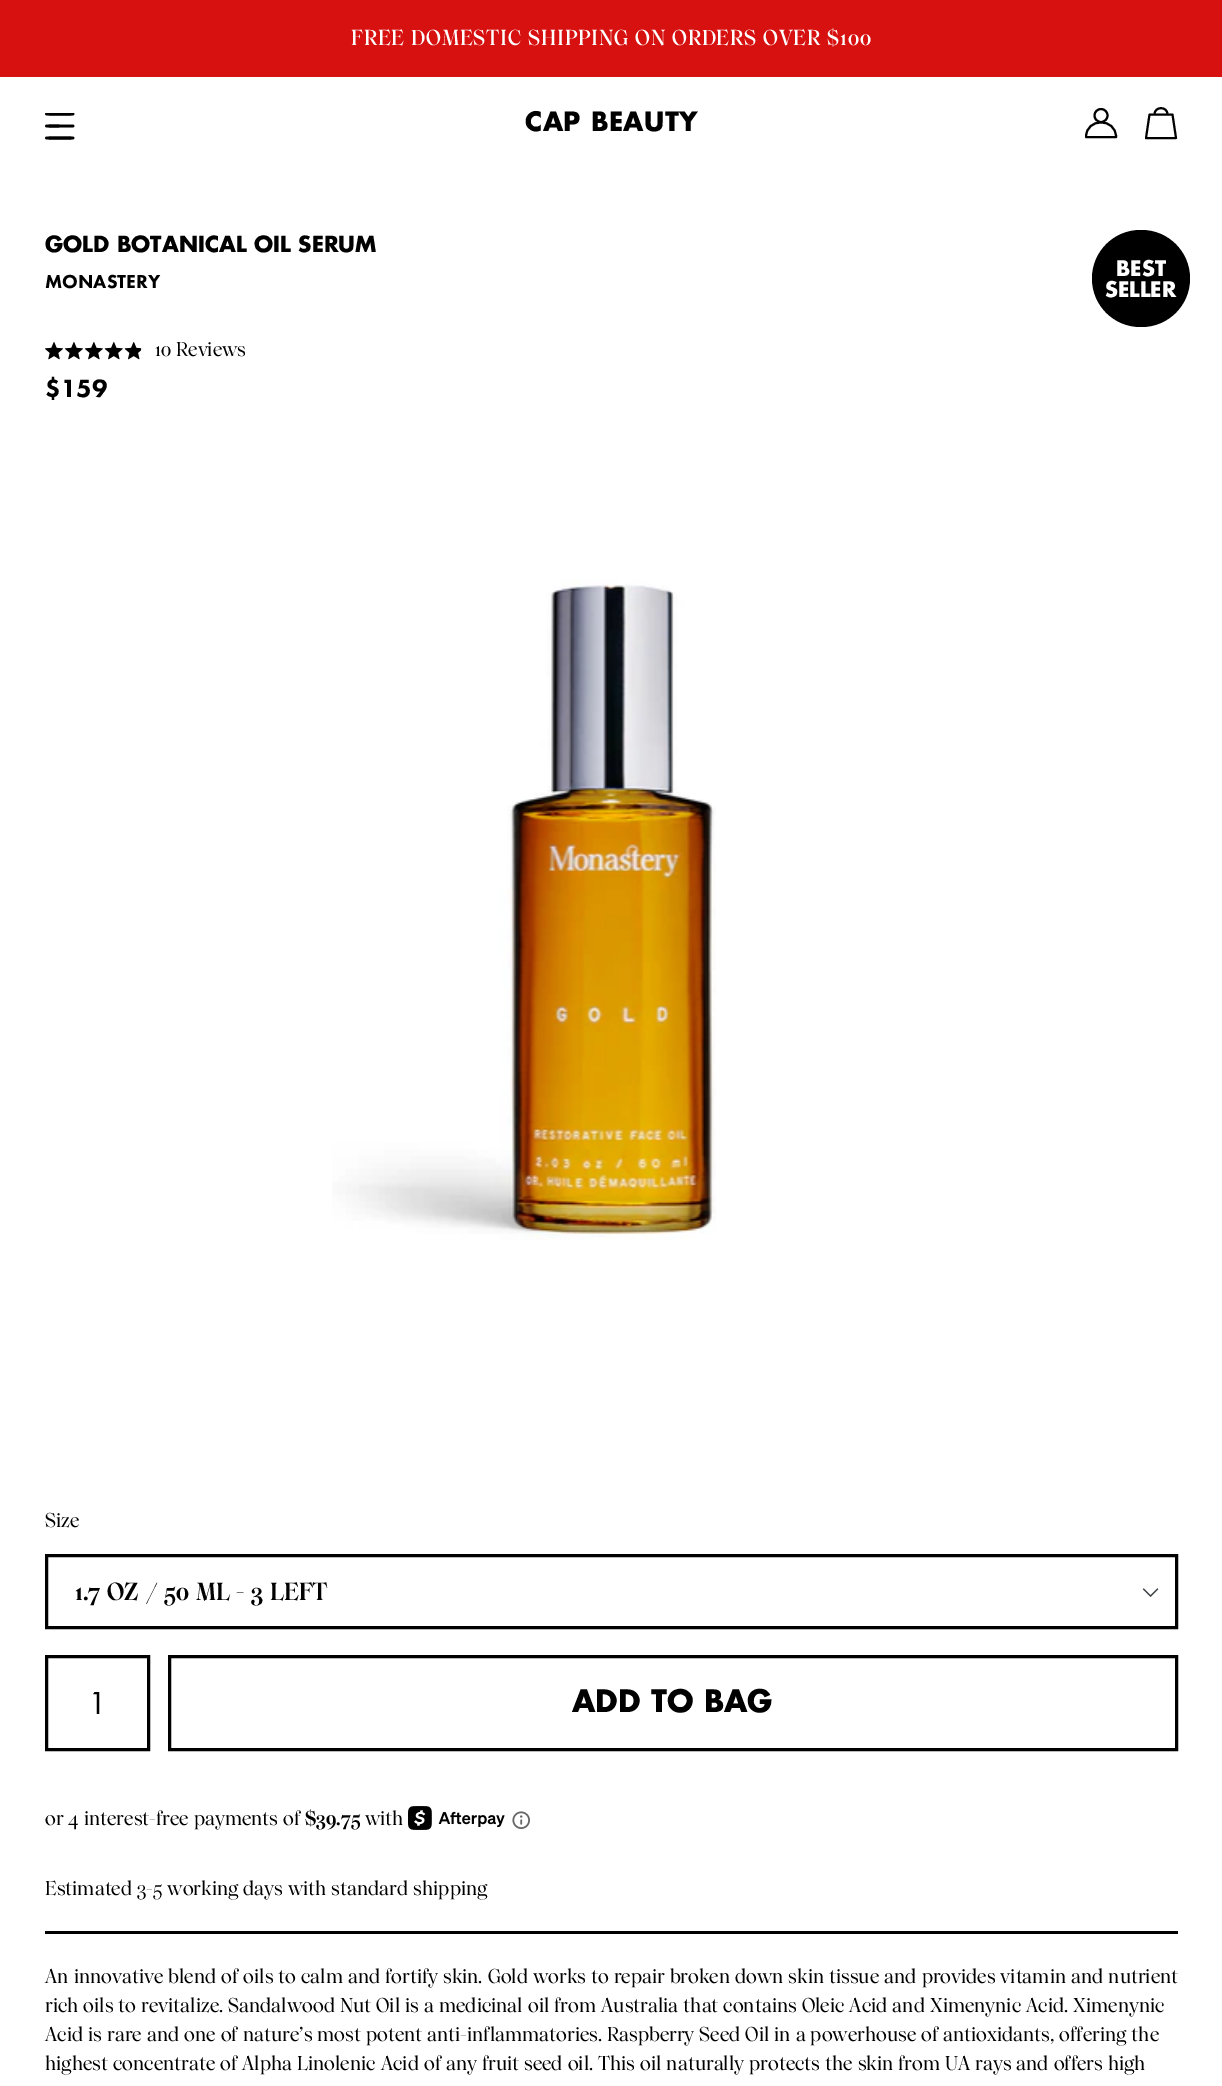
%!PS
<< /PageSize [1222 2086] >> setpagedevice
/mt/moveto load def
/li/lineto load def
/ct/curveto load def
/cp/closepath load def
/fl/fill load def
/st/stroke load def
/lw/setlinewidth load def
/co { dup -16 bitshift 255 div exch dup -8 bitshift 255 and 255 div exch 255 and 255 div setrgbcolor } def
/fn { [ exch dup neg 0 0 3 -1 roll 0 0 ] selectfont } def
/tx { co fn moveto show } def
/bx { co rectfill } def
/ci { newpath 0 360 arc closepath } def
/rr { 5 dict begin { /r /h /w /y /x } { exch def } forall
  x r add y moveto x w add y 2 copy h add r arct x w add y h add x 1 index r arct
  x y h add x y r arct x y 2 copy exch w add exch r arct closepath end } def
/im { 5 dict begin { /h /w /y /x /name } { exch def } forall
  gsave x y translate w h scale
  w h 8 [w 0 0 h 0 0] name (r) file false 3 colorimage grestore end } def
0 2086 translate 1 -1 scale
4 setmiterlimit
0 0 1222 2086 16#FFFFFF bx
0 0 1222 77 16#D71010 bx
(media/1.raw) 45 113 30 27 im
16#000000 co
2 lw
1101 115.5 6.5 ci st
1 setlinecap
1 setlinejoin
1116 137 mt 1116 117.5 1086 117.5 1086 137 ct cp st
1149.5 114.5 mt 1172.5 114.5 li 1176 138 li 1146 138 li cp 1167.5 114.5 mt 1167.5 106 1154.5 106 1154.5 114.5 ct st
1092 230 98 97 48.5 rr fl
(media/2.raw) 45 342 98 18 im
(media/3.raw) 45 342 96 18 im
(media/4.raw) 332 579 384 661 im
(media/5.raw) 1142 1588 17 9 im
3 lw
0 setlinecap
0 setlinejoin
46.5 1555.5 1130 72 rectstroke
46.5 1656.5 102 93 rectstroke
169.5 1656.5 1007 93 rectstroke
(media/6.raw) 408 1806 97 24 im
(media/7.raw) 512 1811 18 18 im
45 1931 1133 3 16#000000 bx
/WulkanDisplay-SemiBold 21 fn
16#FFFFFF co
351 45 mt .75 0 (FREE DOMESTIC SHIPPING ON ORDERS OVER $100) ashow
/Futura-Bold 26 fn
16#000000 co
525 131 mt .5 0 (CAP BEAUTY) ashow
(GOLD BOTANICAL OIL SERUM) 45 252 /Futura-Bold 21.6 16#000000 tx
(MONASTERY) 45 288 /FuturaPT-Black 19.45 16#000000 tx
(BEST) 1116 276 /Futura-Bold 21 16#FFFFFF tx
(SELLER) 1105 297 /Futura-Bold 21 16#FFFFFF tx
(10 Reviews) 155 356 /WulkanDisplay-Medium 19.45 16#000000 tx
($159) 45 397 /FuturaPT-Black 26 16#000000 tx
(Size) 45 1527 /WulkanDisplay-Medium 19.45 16#000000 tx
(1.7 OZ / 50 ML - 3 LEFT) 75 1600 /WulkanDisplay-Bold 24 16#000000 tx
(1) 88 1714 /FuturaPT-Regular 33 16#000000 tx
(ADD TO BAG) 572 1712 /Futura-Bold 30 16#000000 tx
(or 4 interest-free payments of) 45 1825 /WulkanDisplay-Medium 19.45 16#000000 tx
($39.75) 305 1825 /WulkanDisplay-Bold 19.45 16#000000 tx
(with) 365 1825 /WulkanDisplay-Medium 19.45 16#000000 tx
(Estimated 3-5 working days with standard shipping) 45 1895 /WulkanDisplay-Medium 19.45 16#000000 tx
(An innovative blend of oils to calm and fortify skin. Gold works to repair broken down skin tissue and provides vitamin and nutrient) 45 1983 /WulkanDisplay-Medium 19.45 16#000000 tx
(rich oils to revitalize. Sandalwood Nut Oil is a medicinal oil from Australia that contains Oleic Acid and Ximenynic Acid. Ximenynic) 45 2012 /WulkanDisplay-Medium 19.45 16#000000 tx
(Acid is rare and one of nature’s most potent anti-inflammatories. Raspberry Seed Oil in a powerhouse of antioxidants, offering the) 45 2041 /WulkanDisplay-Medium 19.45 16#000000 tx
(highest concentrate of Alpha Linolenic Acid of any fruit seed oil. This oil naturally protects the skin from UA rays and offers high) 45 2070 /WulkanDisplay-Medium 19.45 16#000000 tx
showpage
